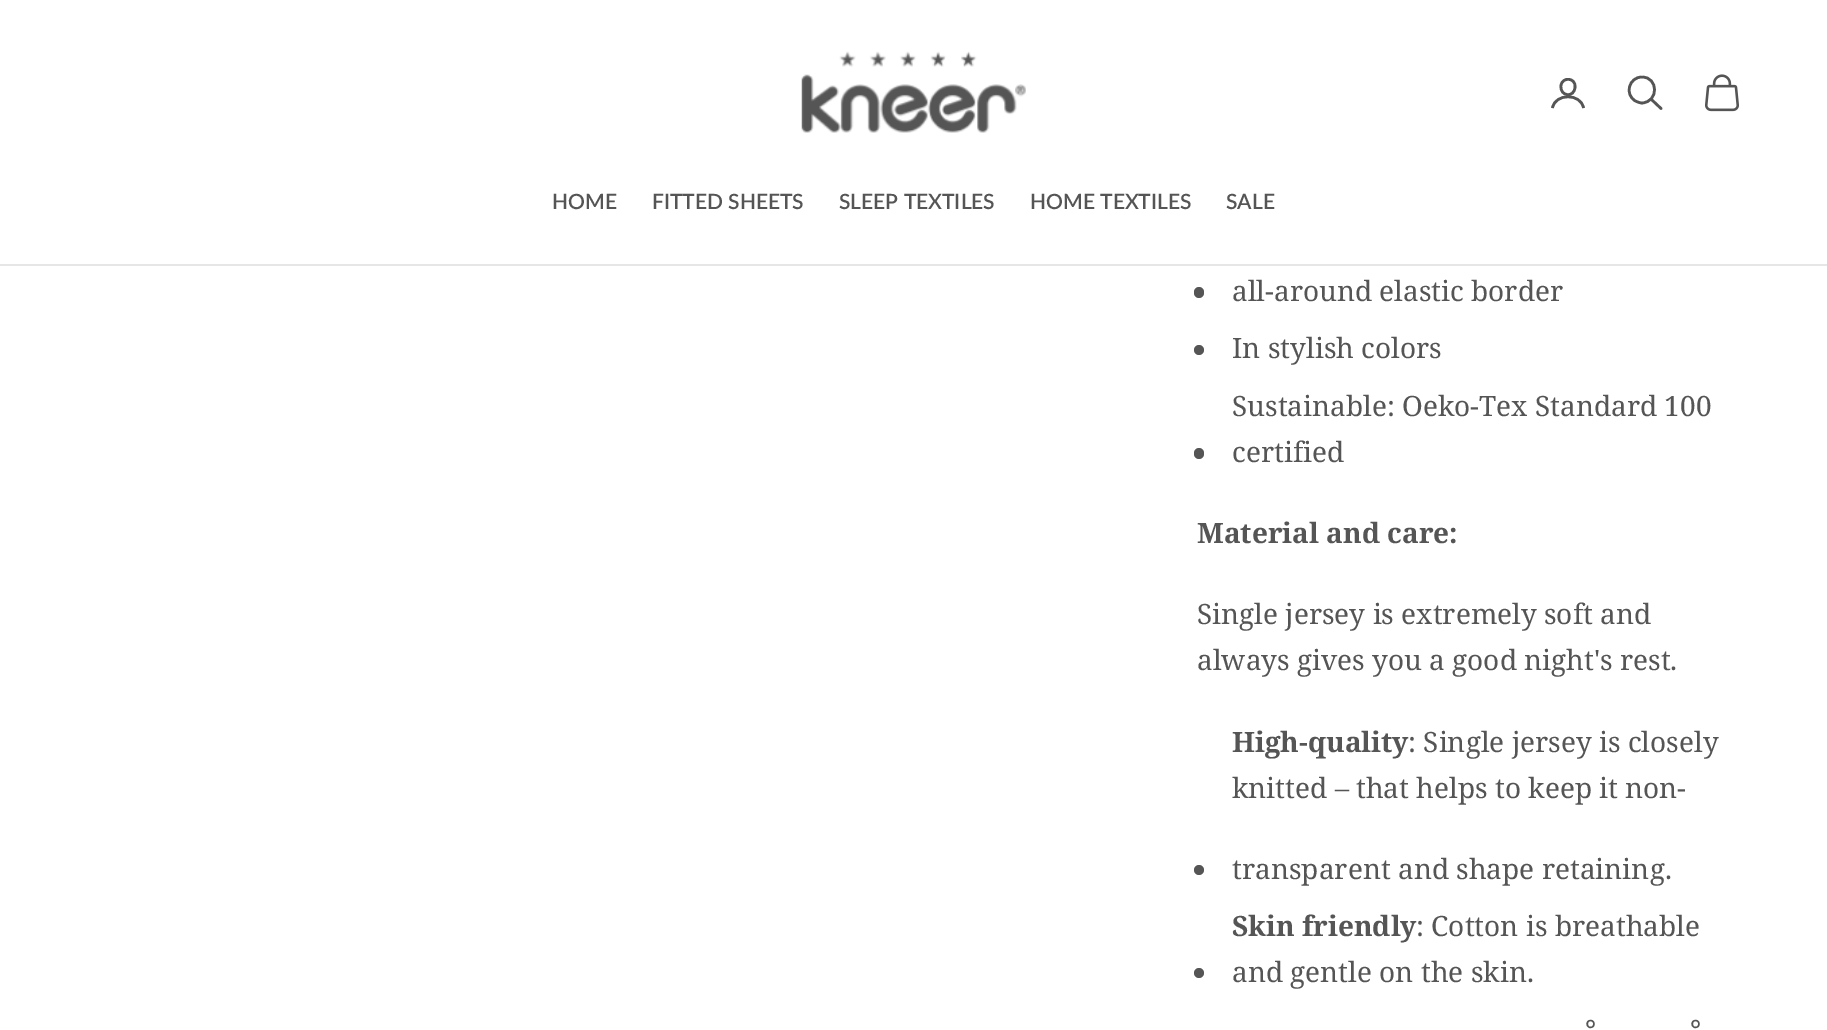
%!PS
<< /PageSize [1827 1030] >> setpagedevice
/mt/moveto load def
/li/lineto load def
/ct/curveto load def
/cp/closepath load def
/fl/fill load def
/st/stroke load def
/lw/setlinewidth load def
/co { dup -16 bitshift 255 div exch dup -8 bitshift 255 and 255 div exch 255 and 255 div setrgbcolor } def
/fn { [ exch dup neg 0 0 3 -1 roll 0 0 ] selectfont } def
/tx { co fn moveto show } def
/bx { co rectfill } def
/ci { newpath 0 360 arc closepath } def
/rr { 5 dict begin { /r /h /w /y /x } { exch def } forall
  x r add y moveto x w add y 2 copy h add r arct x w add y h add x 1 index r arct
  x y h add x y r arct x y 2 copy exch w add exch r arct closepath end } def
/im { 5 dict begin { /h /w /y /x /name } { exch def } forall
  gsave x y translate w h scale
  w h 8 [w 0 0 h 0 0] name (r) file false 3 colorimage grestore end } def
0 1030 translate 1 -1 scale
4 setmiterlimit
0 0 1827 1030 16#FFFFFF bx
0 264 1827 2 16#E6E6E6 bx
(media/1.raw) 801 51 225 82 im
16#555555 co
2.6 lw
1 setlinecap
1 setlinejoin
1575 87 mt 1574.5 98.5 1559.5 96.5 1561 85.5 ct 1562 76.5 1576 77.5 1575 87 ct cp st
0 setlinecap
0 setlinejoin
1552.5 108 mt 1555 93 1581 93 1583.5 108 ct st
1642 77 mt 1629 77 1624 94.5 1635.5 101 ct 1637.5 102 1640 103 1642 103 ct 1659 102 1658.5 77 1642 77 ct cp st
1 setlinecap
1651.5 99.5 mt 1661 108.5 li st
(media/2.raw) 1705 74 34 38 im
1194 287 10 11 5 rr fl
1199 350 5 ci fl
1194 448 10 11 5 rr fl
1199 870 5 ci fl
1199 973 5 ci fl
(HOME) 552 209 /Lato-SemiBold 21 16#555555 tx
(FITTED SHEETS) 652 209 /Lato-SemiBold 21 16#555555 tx
(SLEEP TEXTILES) 839 209 /Lato-SemiBold 21 16#555555 tx
(HOME TEXTILES) 1030 209 /Lato-SemiBold 21 16#555555 tx
(SALE) 1226 209 /Lato-SemiBold 21 16#555555 tx
(all-around elastic border) 1232 301 /NotoSerif-Regular 28 16#555555 tx
(In stylish colors) 1232 358 /NotoSerif-Regular 28 16#555555 tx
(Sustainable: Oeko-Tex Standard 100) 1232 416 /NotoSerif-Regular 28 16#555555 tx
(certified) 1232 462 /NotoSerif-Regular 28 16#555555 tx
(Material and care:) 1197 543 /NotoSerif-Bold 28 16#555555 tx
(Single jersey is extremely soft and) 1197 624 /NotoSerif-Regular 28 16#555555 tx
(always gives you a good night's rest.) 1197 670 /NotoSerif-Regular 28 16#555555 tx
(High-quality) 1232 752 /NotoSerif-Bold 28 16#555555 tx
(: Single jersey is closely) 1408 752 /NotoSerif-Regular 28 16#555555 tx
(knitted – that helps to keep it non-) 1232 798 /NotoSerif-Regular 28 16#555555 tx
(transparent and shape retaining.) 1232 879 /NotoSerif-Regular 28 16#555555 tx
(Skin friendly) 1232 936 /NotoSerif-Bold 28 16#555555 tx
(: Cotton is breathable) 1416 936 /NotoSerif-Regular 28 16#555555 tx
(and gentle on the skin.) 1232 982 /NotoSerif-Regular 28 16#555555 tx
(°) 1585 1040 /NotoSerif-Regular 28 16#555555 tx
(°) 1690 1040 /NotoSerif-Regular 28 16#555555 tx
showpage
